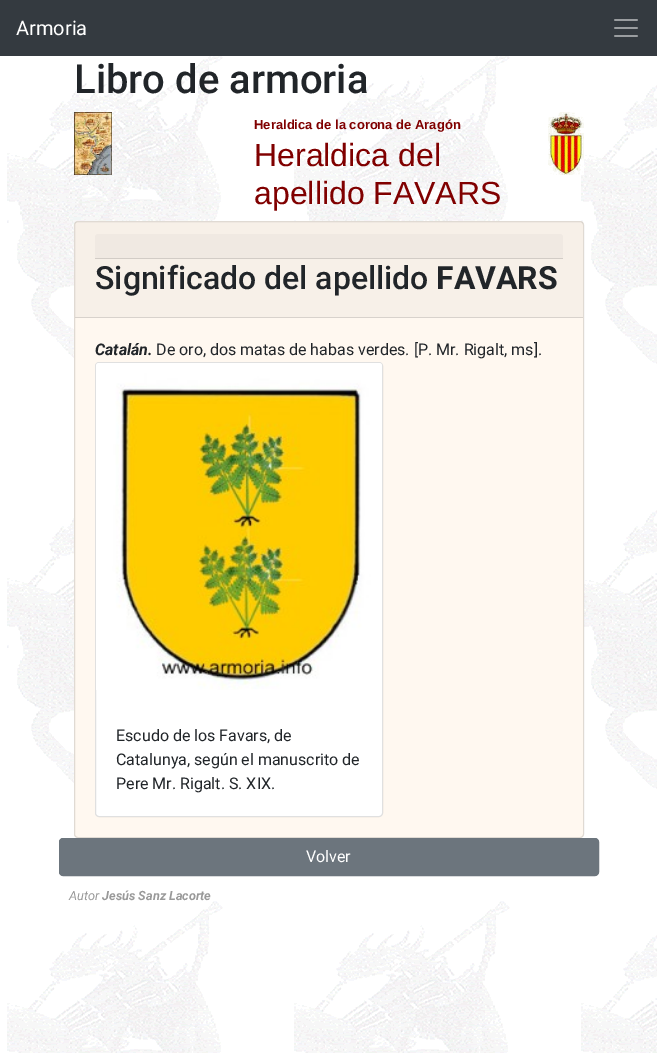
%!PS
<< /PageSize [657 1053] /PageUsesTransparency true >> setpagedevice
/mt/moveto load def
/li/lineto load def
/ct/curveto load def
/cp/closepath load def
/fl/fill load def
/st/stroke load def
/gs/gsave load def
/gr/grestore load def
/co { dup -16 bitshift 255 div exch dup -8 bitshift 255 and 255 div exch 255 and 255 div setrgbcolor } def
/fn { [ exch dup neg 0 0 3 -1 roll 0 0 ] selectfont } def
/tx { co fn moveto show } def
/bx { co rectfill } def
/al { dup .setfillconstantalpha .setstrokeconstantalpha } def
/rr { 5 dict begin { /r /h /w /y /x } { exch def } forall
  x r add y moveto x w add y 2 copy h add r arct x w add y h add x 1 index r arct
  x y h add x y r arct x y 2 copy exch w add exch r arct closepath end } def
/im { 5 dict begin { /h /w /y /x /name } { exch def } forall
  gsave x y translate w h scale
  w h 8 [w 0 0 h 0 0] name (r) file false 3 colorimage grestore end } def
0 .pushpdf14devicefilter
0 1053 translate 1 -1 scale
4 setmiterlimit
0 0 657 1053 16#FFFFFF bx
(media/1.raw) 7 56 650 997 im
0 0 657 56 16#343A40 bx
(media/2.raw) 614 19 24 18 im
(media/3.raw) 74 112 38 63 im
(media/4.raw) 548 112 36 63 im
16#FFF8F0 co
74 221 510 617 4 rr fl
0.12 al
16#000000 co
74.5 221.5 509 616 3.5 rr st
0.03 al
75 222 508 95 16#000000 bx
1 al
75 317 508 1 16#D8D2CC bx
16#F0E9E2 co
98 234 mt 560 234 li 561.5 234 563 235.5 563 237 ct 563 259 li 95 259 li 95 237 li 95 235.5 96.5 234 98 234 ct cp fl
95 258 468 1 16#D2CCC6 bx
16#FFFFFF co
95 362 288 455 4 rr fl
0.12 al
16#000000 co
95.5 362.5 287 454 3.5 rr st
1 al
(media/5.raw) 96 363 286 327 im
16#6C757D co
59.5 838.5 539 37 3.5 rr gs fl gr
st
(Armoria) 16 35 /Roboto-Regular 20 16#FFFFFF tx
(Libro de armoria) 74 93 /Roboto-Medium 40 16#212529 tx
(Heraldica de la corona de Aragón) 254 129 /LiberationSans-Bold 13 16#800000 tx
(Heraldica del) 254 166 /LiberationSans-Regular 32 16#800000 tx
(apellido FAVARS) 254 204 /LiberationSans-Regular 32 16#800000 tx
(Significado del apellido) 95 289 /Roboto-Medium 32 16#212529 tx
(FAVARS) 436 289 /Roboto-Bold 32 16#212529 tx
(Catalán.) 95 355 /Roboto-BoldItalic 16 16#212529 tx
(De oro, dos matas de habas verdes. [P. Mr. Rigalt, ms].) 156 355 /Roboto-Regular 16 16#212529 tx
(Escudo de los Favars, de) 116 741 /Roboto-Regular 16 16#212529 tx
(Catalunya, según el manuscrito de) 116 765 /Roboto-Regular 16 16#212529 tx
(Pere Mr. Rigalt. S. XIX.) 116 789 /Roboto-Regular 16 16#212529 tx
(Volver) 306 862 /Roboto-Regular 16 16#FFFFFF tx
(Autor) 69 900 /Roboto-Italic 12.75 16#999999 tx
(Jesús Sanz Lacorte) 102 900 /Roboto-BoldItalic 12.75 16#999999 tx
.poppdf14devicefilter showpage
